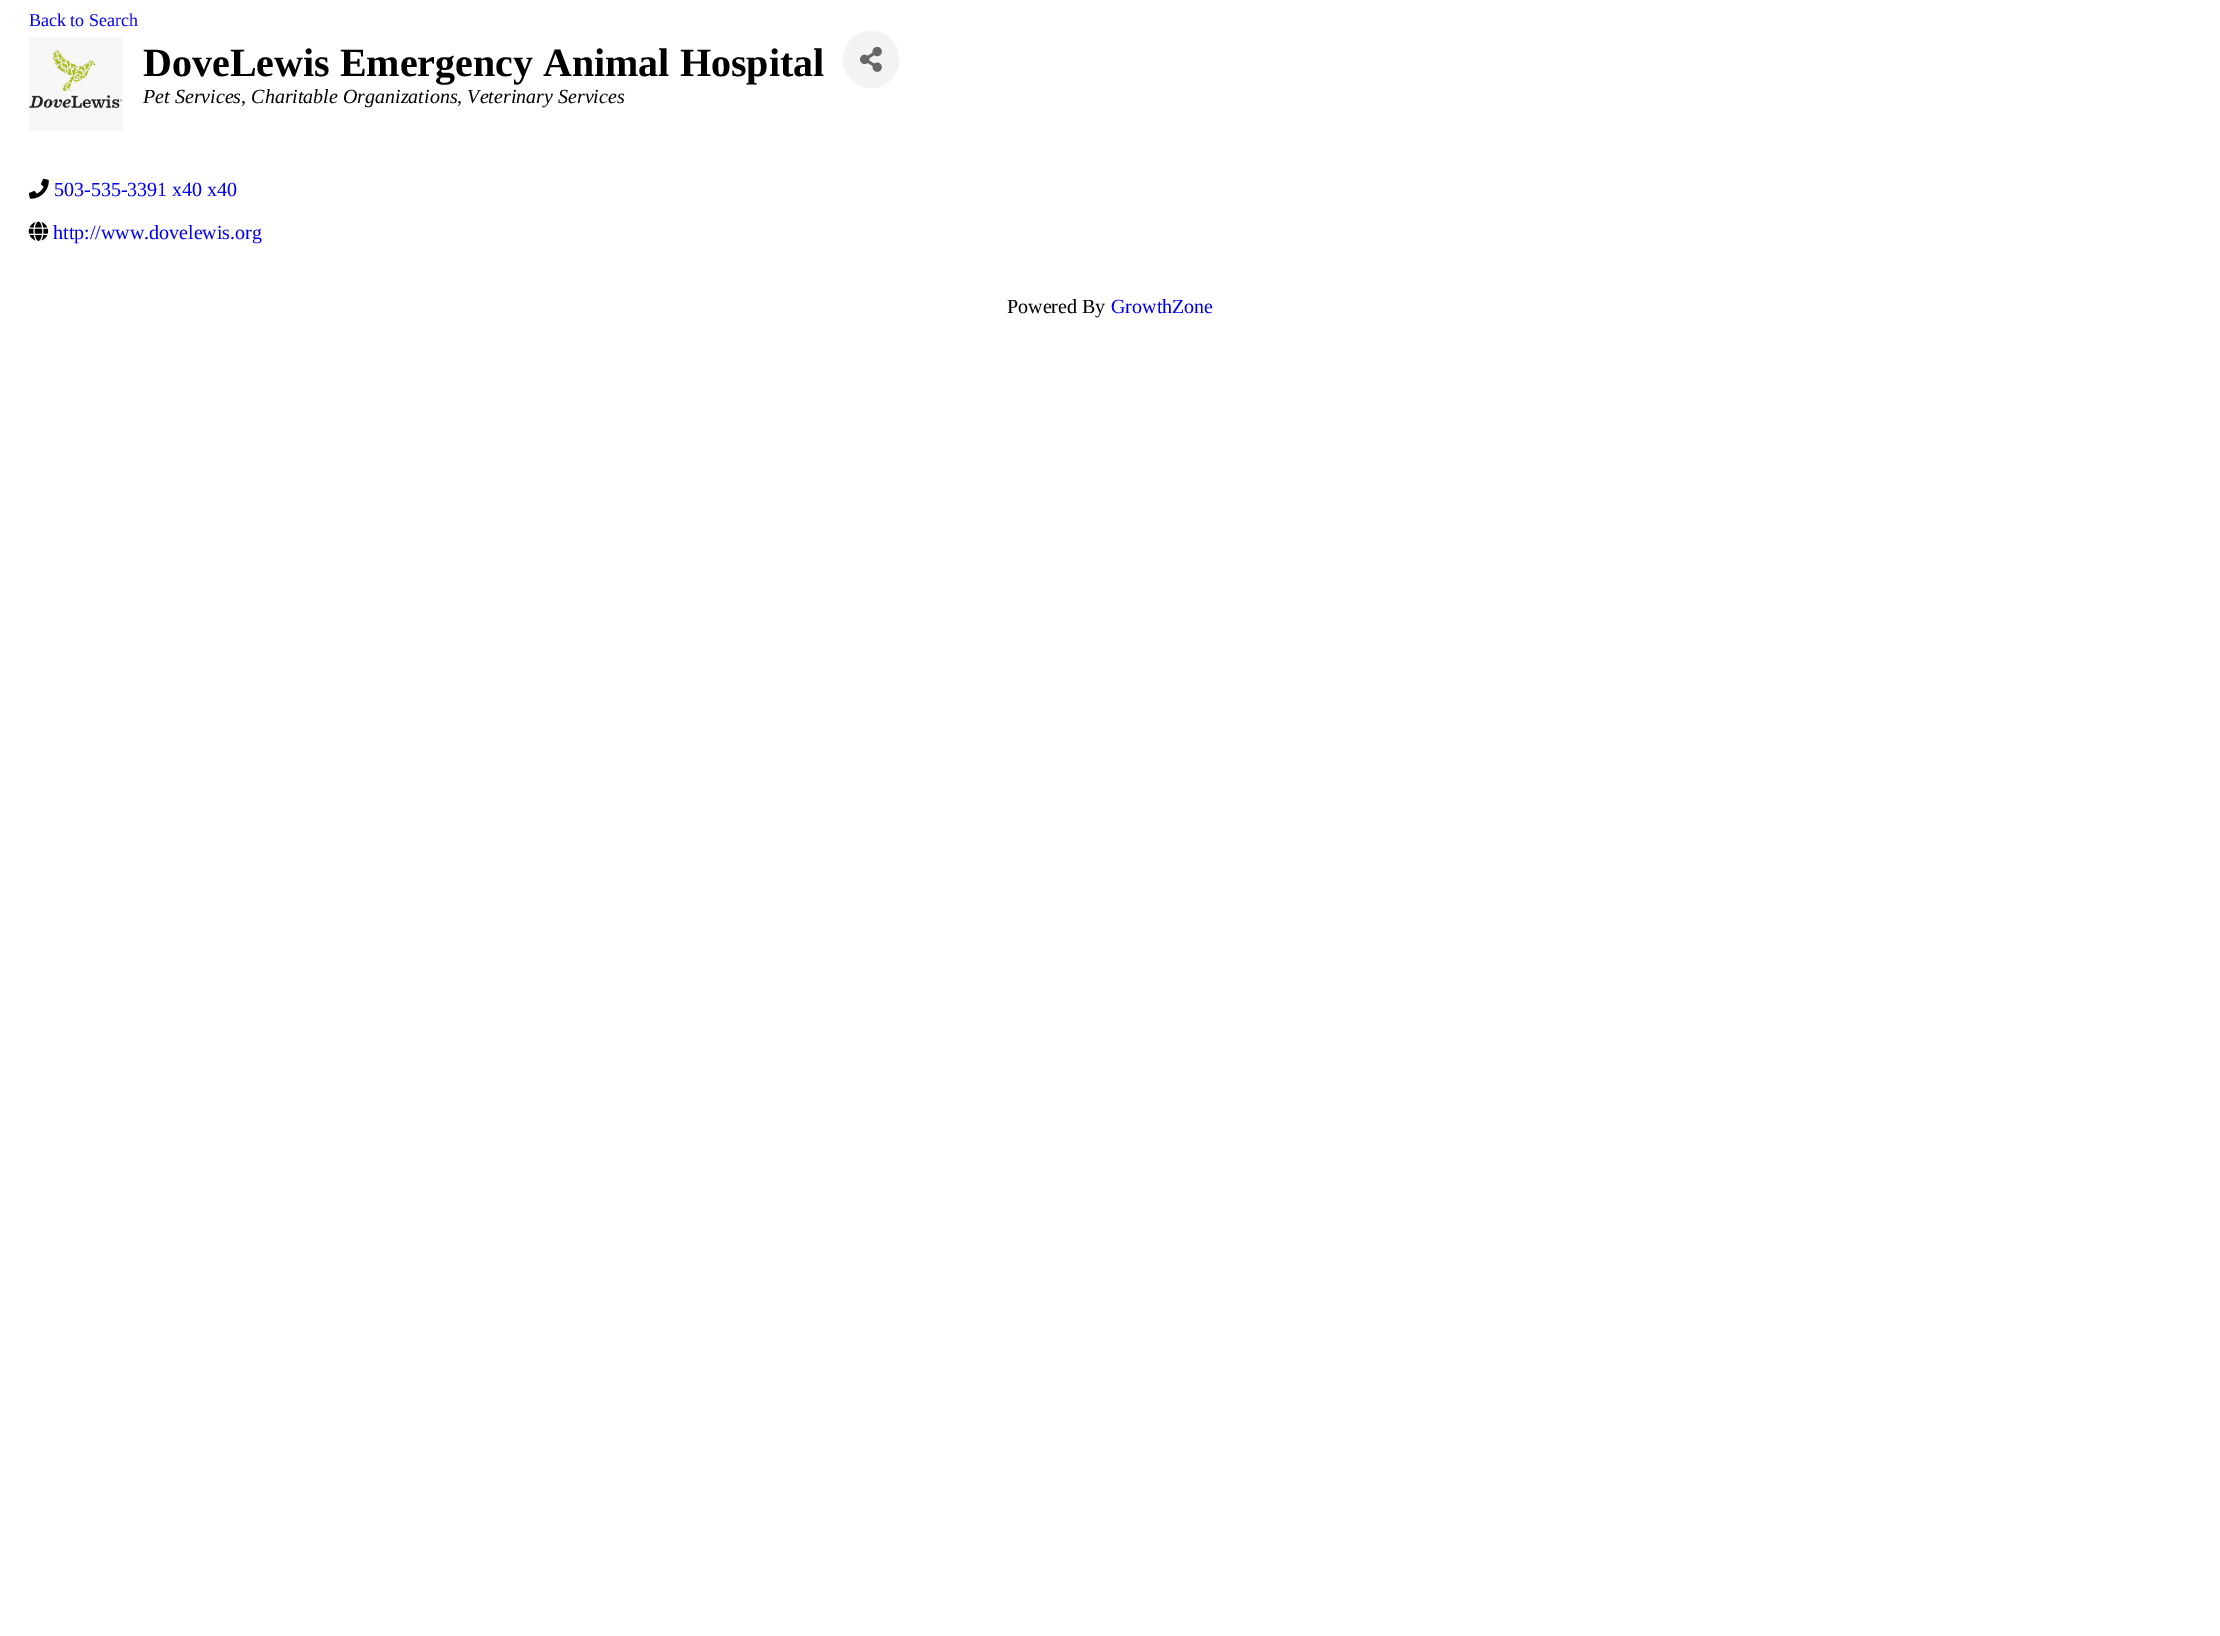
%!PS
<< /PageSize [2220 1636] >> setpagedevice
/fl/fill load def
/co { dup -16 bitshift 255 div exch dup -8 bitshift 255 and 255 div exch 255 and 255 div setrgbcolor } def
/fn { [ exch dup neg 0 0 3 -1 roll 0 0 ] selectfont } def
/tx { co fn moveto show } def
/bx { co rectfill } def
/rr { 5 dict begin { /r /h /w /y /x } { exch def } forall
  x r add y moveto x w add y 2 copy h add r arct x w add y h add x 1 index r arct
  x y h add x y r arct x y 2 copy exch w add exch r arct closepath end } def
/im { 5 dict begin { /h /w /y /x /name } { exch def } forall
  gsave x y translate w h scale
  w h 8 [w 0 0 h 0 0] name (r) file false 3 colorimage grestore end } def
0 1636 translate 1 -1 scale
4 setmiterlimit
0 0 2220 1636 16#FFFFFF bx
(media/1.raw) 28 37 95 94 im
16#F3F3F3 co
843 31 56 57 28 rr fl
(media/2.raw) 860 46 22 26 im
(media/3.raw) 28 178 21 21 im
(media/4.raw) 28 221 21 20 im
(Back to Search) 29 26 /LiberationSerif-Regular 18 16#0000EE tx
(DoveLewis Emergency Animal Hospital) 143 76 /LiberationSerif-Bold 40 16#000000 tx
(Pet Services, Charitable Organizations, Veterinary Services) 143 103 /LiberationSerif-Italic 20 16#000000 tx
(503-535-3391 x40 x40) 54 196 /LiberationSerif-Regular 20 16#0000EE tx
(http://www.dovelewis.org) 53 239 /LiberationSerif-Regular 20 16#0000EE tx
(Powered By) 1007 313 /LiberationSerif-Regular 20 16#000000 tx
(GrowthZone) 1111 313 /LiberationSerif-Regular 20 16#0000EE tx
showpage
